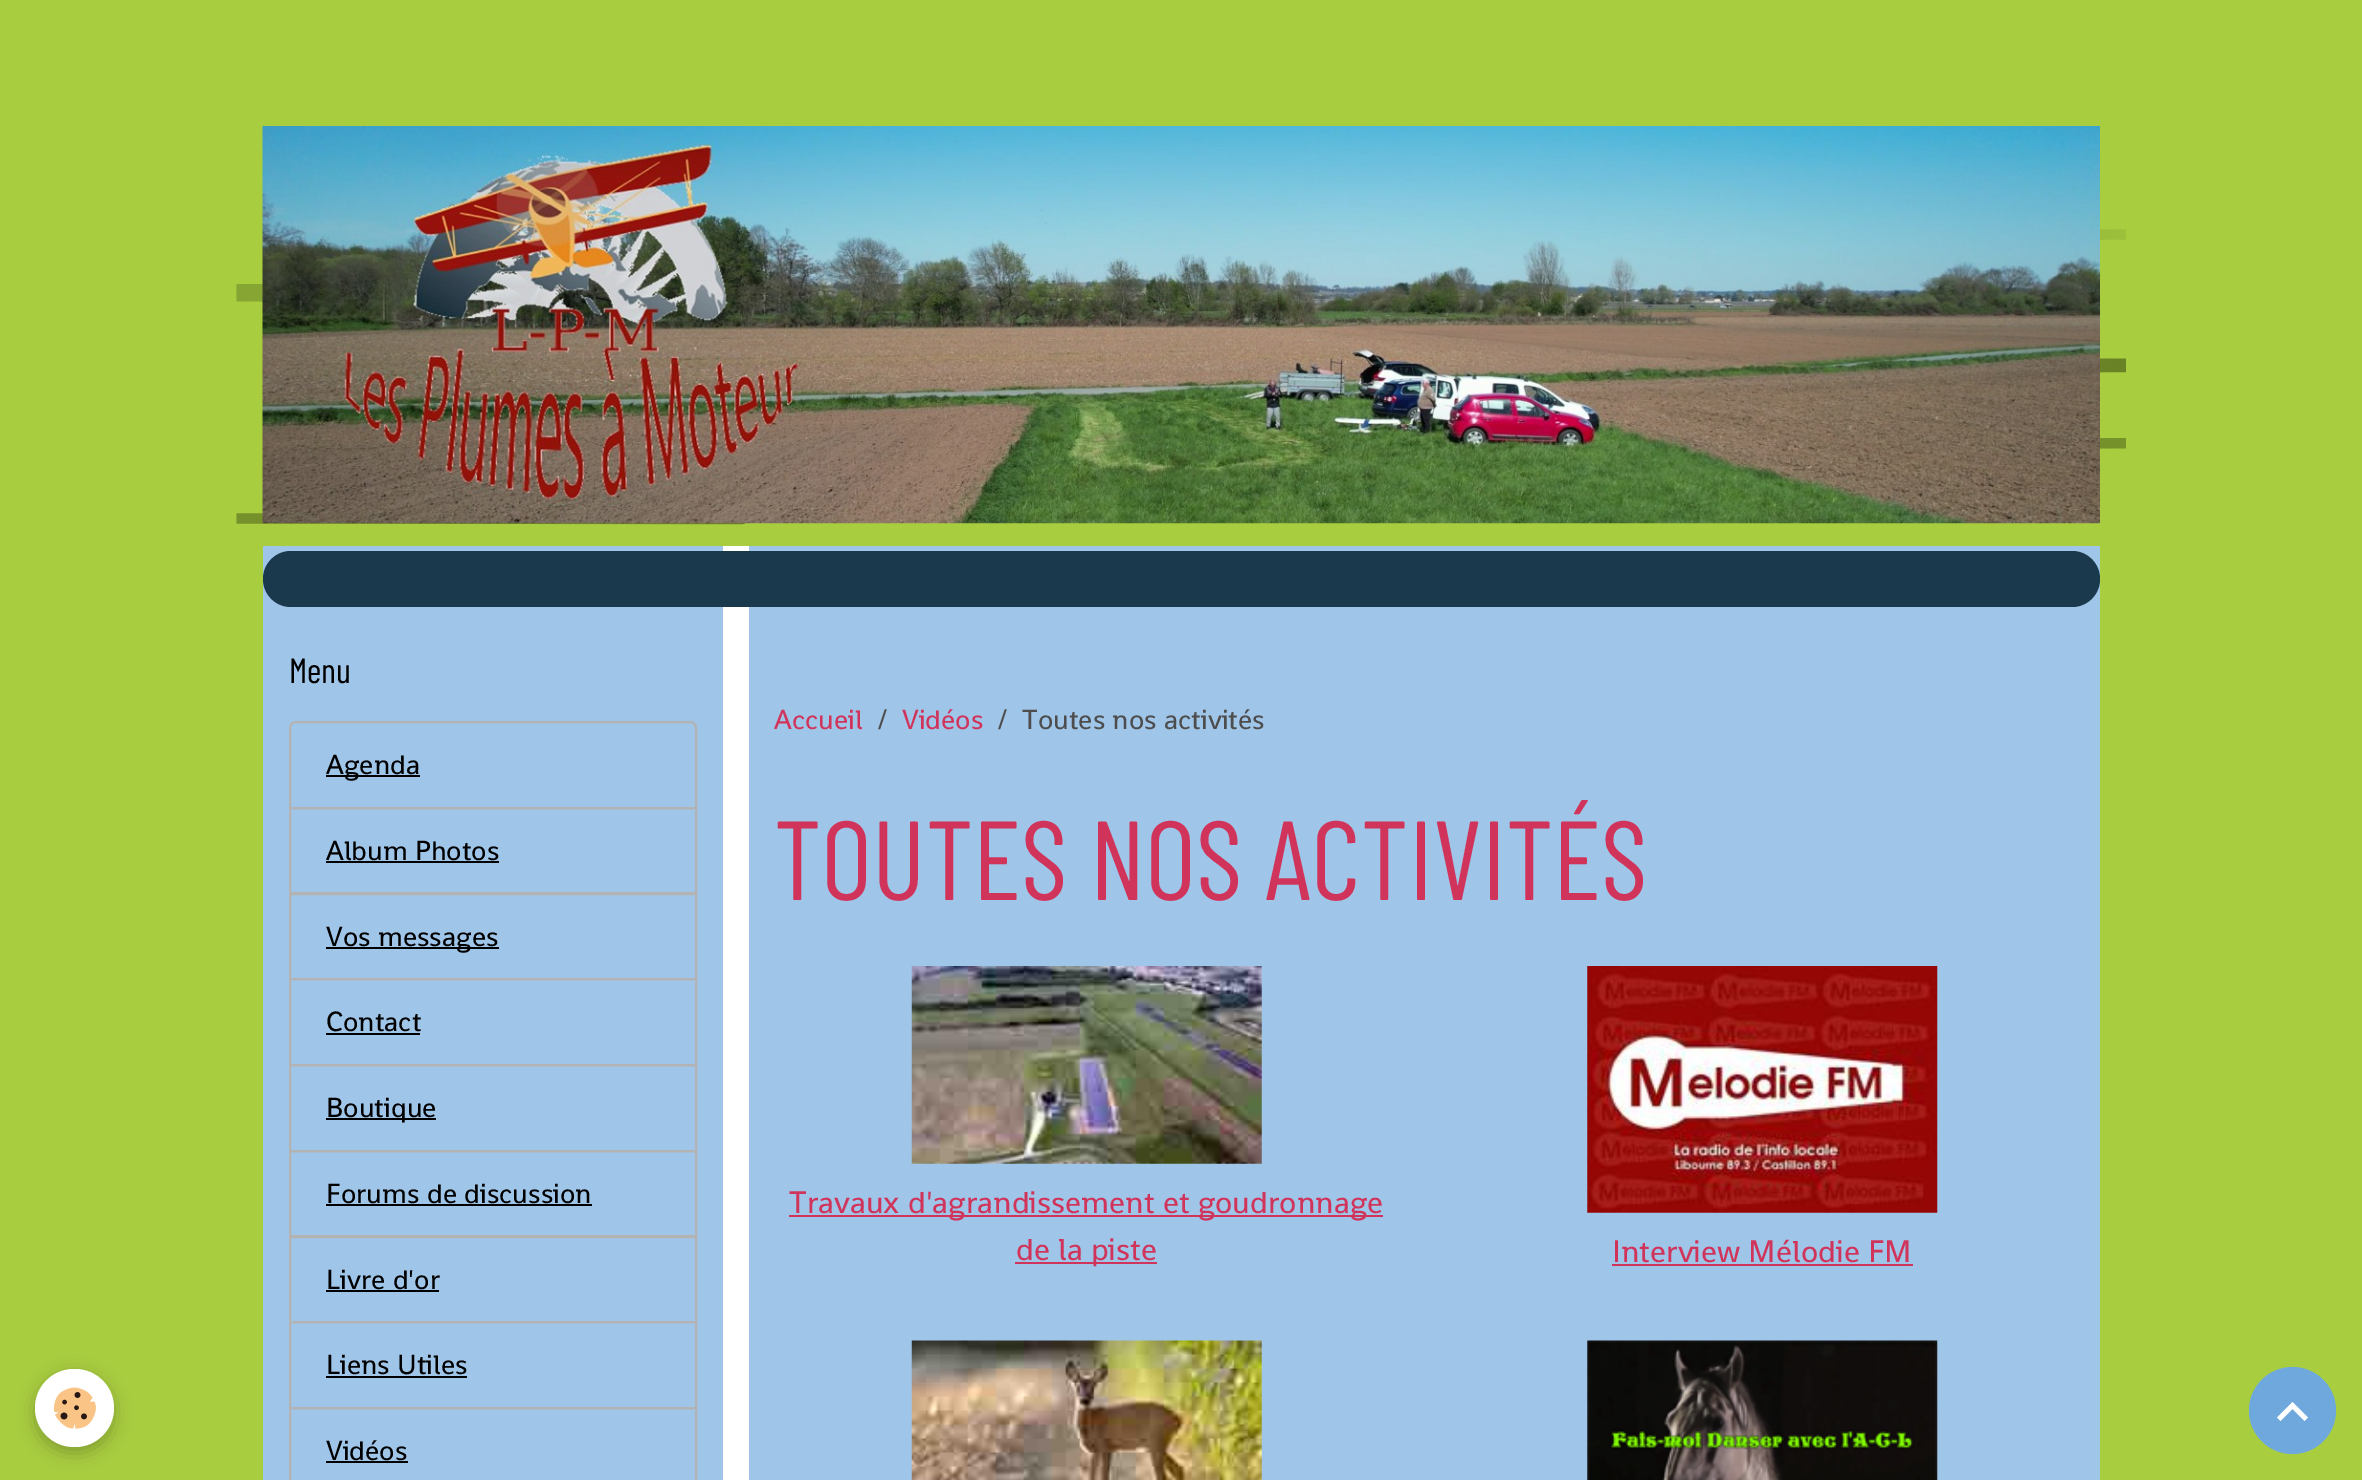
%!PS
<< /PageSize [2362 1480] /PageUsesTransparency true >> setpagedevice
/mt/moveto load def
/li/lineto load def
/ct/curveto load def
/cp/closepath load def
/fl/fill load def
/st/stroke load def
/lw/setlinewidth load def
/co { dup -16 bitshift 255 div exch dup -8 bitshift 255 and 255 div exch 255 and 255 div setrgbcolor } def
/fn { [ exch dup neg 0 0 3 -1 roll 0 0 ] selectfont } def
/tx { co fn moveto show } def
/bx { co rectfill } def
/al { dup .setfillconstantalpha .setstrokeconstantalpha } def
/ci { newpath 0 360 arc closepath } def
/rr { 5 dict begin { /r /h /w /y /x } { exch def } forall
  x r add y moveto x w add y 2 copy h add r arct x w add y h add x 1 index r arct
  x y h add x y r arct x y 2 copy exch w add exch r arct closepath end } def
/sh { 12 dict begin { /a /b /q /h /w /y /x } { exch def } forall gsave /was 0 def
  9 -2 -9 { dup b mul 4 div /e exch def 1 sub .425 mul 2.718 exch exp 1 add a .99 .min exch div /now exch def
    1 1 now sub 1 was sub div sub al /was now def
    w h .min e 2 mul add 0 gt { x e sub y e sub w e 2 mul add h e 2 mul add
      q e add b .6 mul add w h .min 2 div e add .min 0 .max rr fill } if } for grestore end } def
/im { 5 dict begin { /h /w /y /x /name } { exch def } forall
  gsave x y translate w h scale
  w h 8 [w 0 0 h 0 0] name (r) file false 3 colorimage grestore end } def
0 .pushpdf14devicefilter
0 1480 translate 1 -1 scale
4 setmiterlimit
0 0 2362 1480 16#A8CE40 bx
(media/1.raw) 236 229 1890 296 im
(media/2.raw) 262 126 1838 398 im
723 546 26 934 16#FFFFFF bx
263 546 460 934 16#9FC5E8 bx
749 546 1351 934 16#9FC5E8 bx
16#1A394C co
263 551 1837 56 28 rr fl
16#000000 co
35 1374 79 79 39.5 9 .24 sh
16#FFFFFF co
35 1369 79 78 39 rr fl
(media/3.raw) 53 1387 43 42 im
16#B3B3B3 co
2 lw
296 722 mt 690 722 li 693.5 722 696 724.5 696 728 ct 696 808 li 290 808 li 290 728 li 290 724.5 292.5 722 296 722 ct cp st
326 775 94 2 16#000000 bx
16#B3B3B3 co
290 808 406 85 rectstroke
326 861 173 2 16#000000 bx
16#B3B3B3 co
290 894 406 85 rectstroke
326 947 173 2 16#000000 bx
16#B3B3B3 co
290 979 406 86 rectstroke
326 1033 94 2 16#000000 bx
16#B3B3B3 co
290 1065 406 86 rectstroke
326 1118 110 2 16#000000 bx
16#B3B3B3 co
290 1151 406 85 rectstroke
326 1204 266 2 16#000000 bx
16#B3B3B3 co
290 1237 406 85 rectstroke
326 1290 113 2 16#000000 bx
16#B3B3B3 co
290 1322 406 86 rectstroke
326 1376 141 2 16#000000 bx
16#B3B3B3 co
290 1408 406 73 rectstroke
326 1461 82 2 16#000000 bx
(media/4.raw) 911 966 351 198 im
789 1215 594 2 16#D1345B bx
1015 1262 142 2 16#D1345B bx
(media/5.raw) 1587 966 351 247 im
1612 1264 301 2 16#D1345B bx
(media/6.raw) 911 1340 351 140 im
(media/7.raw) 1587 1340 351 140 im
16#6FA8DC co
2292.5 1410.5 43.5 ci fl
16#FFFFFF co
2292.5 1402 mt 2308 1417.5 li 2304.5 1421 li 2292.5 1409 li 2280.5 1421 li 2277 1417.5 li cp fl
(Menu) 289 683 /BarlowCondensed-Regular 35 16#000000 tx
(Agenda) 326 774 /Shanti-Regular 28 16#000000 tx
(Album Photos) 326 860 /Shanti-Regular 28 16#000000 tx
(Vos messages) 326 946 /Shanti-Regular 28 16#000000 tx
(Contact) 326 1031 /Shanti-Regular 28 16#000000 tx
(Boutique) 326 1117 /Shanti-Regular 28 16#000000 tx
(Forums de discussion) 326 1203 /Shanti-Regular 28 16#000000 tx
(Livre d'or) 326 1289 /Shanti-Regular 28 16#000000 tx
(Liens Utiles) 326 1374 /Shanti-Regular 28 16#000000 tx
(Vidéos) 326 1460 /Shanti-Regular 28 16#000000 tx
(Accueil) 774 729 /Shanti-Regular 28 16#D1345B tx
(/) 877 729 /Shanti-Regular 28 16#4D4D4D tx
(Vidéos) 902 729 /Shanti-Regular 28 16#D1345B tx
(/) 997 729 /Shanti-Regular 28 16#4D4D4D tx
(Toutes nos activités) 1022 729 /Shanti-Regular 28 16#4D4D4D tx
(TOUTES NOS ACTIVITÉS) 774 900 /BarlowCondensed-Regular 112 16#D1345B tx
(Travaux d'agrandissement et goudronnage) 789 1213 /Shanti-Regular 31.5 16#D1345B tx
(de la piste) 1016 1260 /Shanti-Regular 31.5 16#D1345B tx
(Interview Mélodie FM) 1612 1262 /Shanti-Regular 31.5 16#D1345B tx
.poppdf14devicefilter showpage
